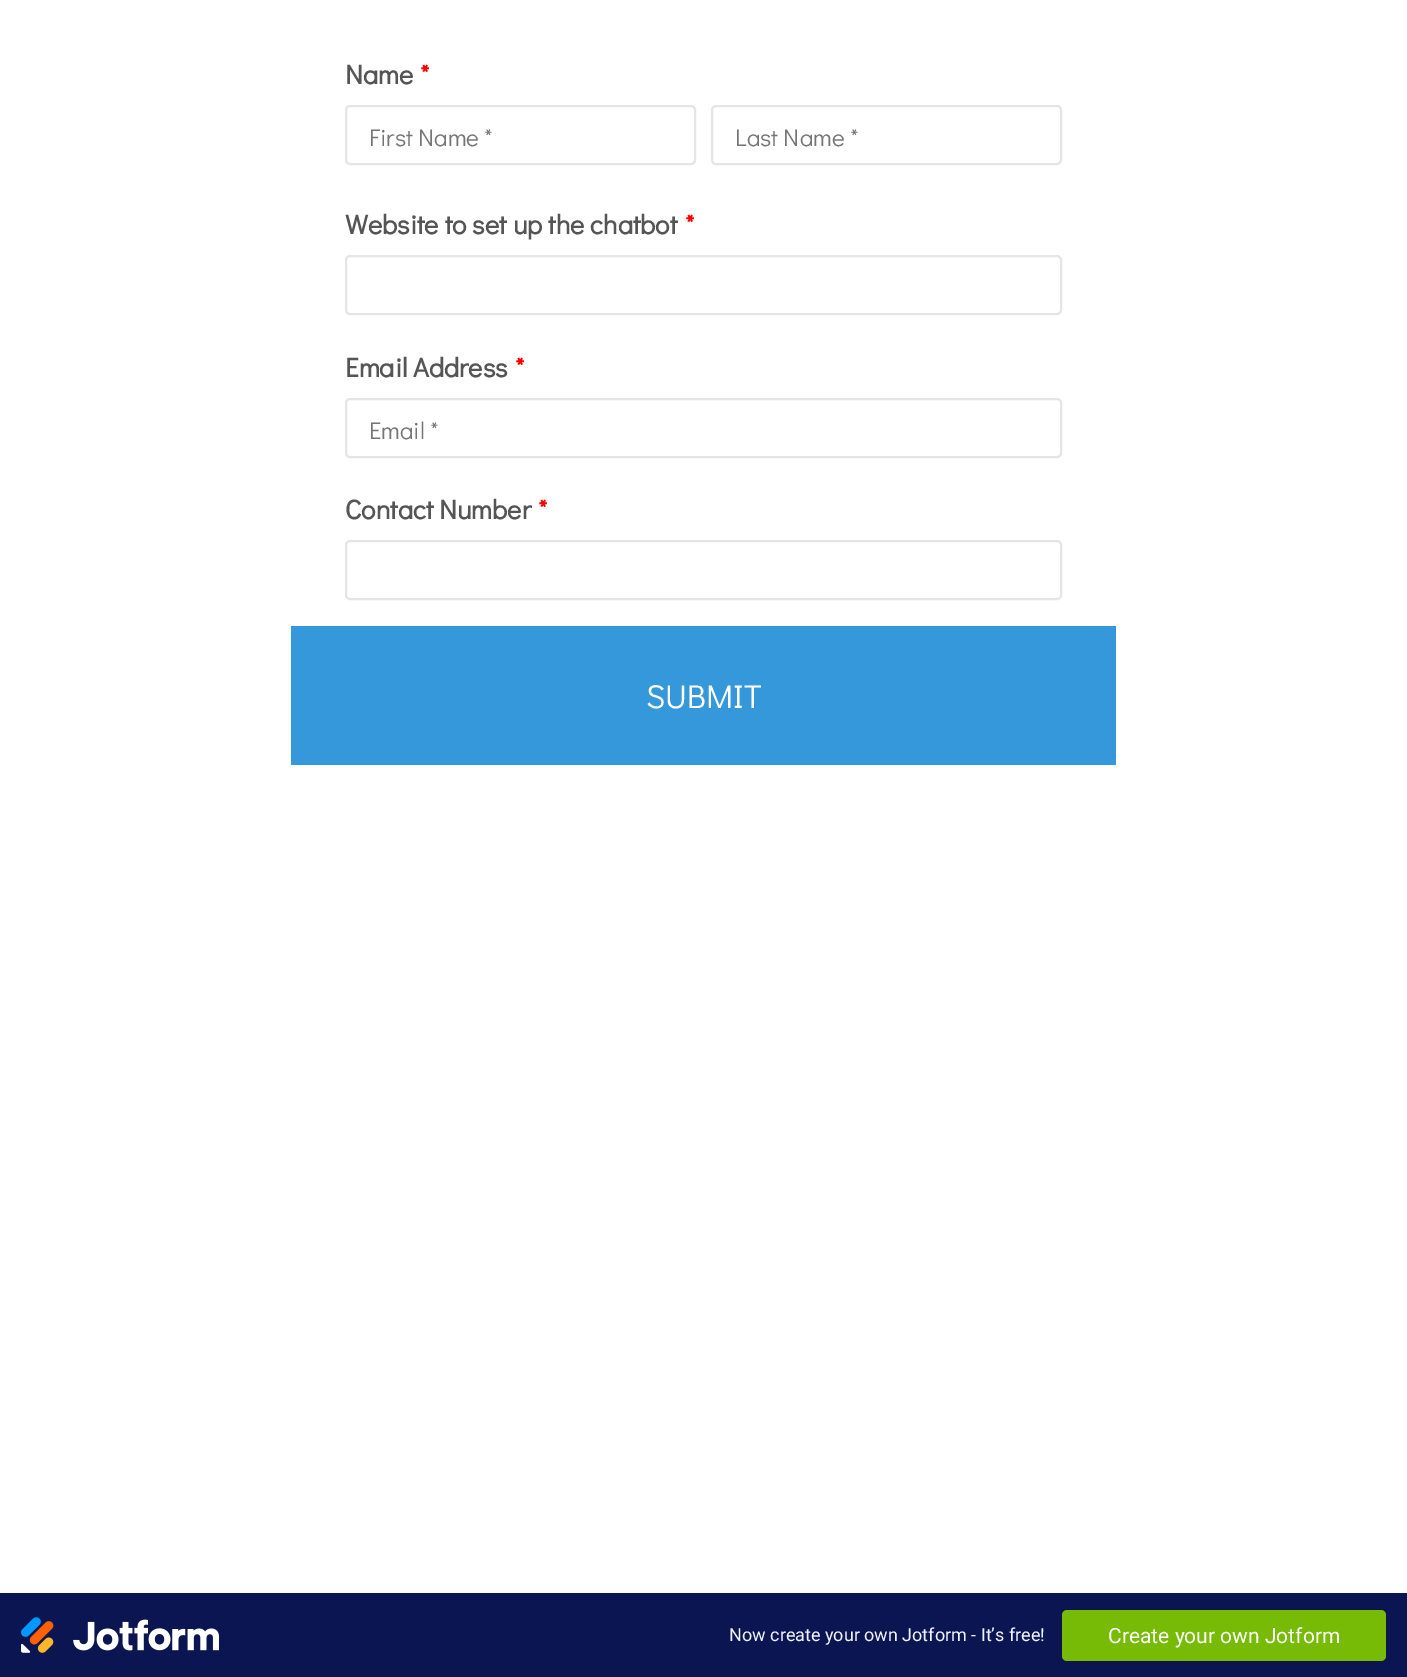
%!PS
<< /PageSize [1407 1677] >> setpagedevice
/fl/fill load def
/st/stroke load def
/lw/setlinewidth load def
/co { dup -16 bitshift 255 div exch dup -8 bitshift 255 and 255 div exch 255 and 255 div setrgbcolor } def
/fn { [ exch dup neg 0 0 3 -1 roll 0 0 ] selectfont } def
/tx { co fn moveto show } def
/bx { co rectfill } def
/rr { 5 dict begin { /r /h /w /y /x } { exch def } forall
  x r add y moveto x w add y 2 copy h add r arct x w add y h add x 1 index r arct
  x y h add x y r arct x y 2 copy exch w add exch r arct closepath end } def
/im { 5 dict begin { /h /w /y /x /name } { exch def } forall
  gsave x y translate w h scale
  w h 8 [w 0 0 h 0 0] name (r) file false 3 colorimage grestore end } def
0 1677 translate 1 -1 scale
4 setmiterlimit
0 0 1407 1677 16#FFFFFF bx
16#E5E5E5 co
2 lw
346 106 349 58 4 rr st
712 106 349 58 4 rr st
346 256 715 58 4 rr st
346 399 715 58 4 rr st
346 541 715 58 4 rr st
291 626 825 139 16#3498DB bx
0 1593 1407 84 16#0A1551 bx
(media/1.raw) 21 1617 198 36 im
16#78BB07 co
1062 1610 324 51 5 rr fl
(Name) 345 84 /DidactGothic-Bold 27 16#555555 tx
(*) 420 84 /DidactGothic-Bold 27 16#FF0000 tx
(First Name *) 369 146 /DidactGothic-Regular 24.25 16#757575 tx
(Last Name *) 735 146 /DidactGothic-Regular 24.25 16#757575 tx
(Website to set up the chatbot) 345 234 /DidactGothic-Bold 27 16#555555 tx
(*) 685 234 /DidactGothic-Bold 27 16#FF0000 tx
(Email Address) 345 377 /DidactGothic-Bold 27 16#555555 tx
(*) 515 377 /DidactGothic-Bold 27 16#FF0000 tx
(Email *) 369 439 /DidactGothic-Regular 24.25 16#757575 tx
(Contact Number) 345 519 /DidactGothic-Bold 27 16#555555 tx
(*) 538 519 /DidactGothic-Bold 27 16#FF0000 tx
(SUBMIT) 646 708 /DidactGothic-Regular 33 16#FFFFFF tx
(Now create your own Jotform - It’s free!) 729 1641 /Roboto-Regular 18 16#F3F3FE tx
(Create your own Jotform) 1108 1643 /Roboto-Regular 21 16#FFFFFF tx
showpage
